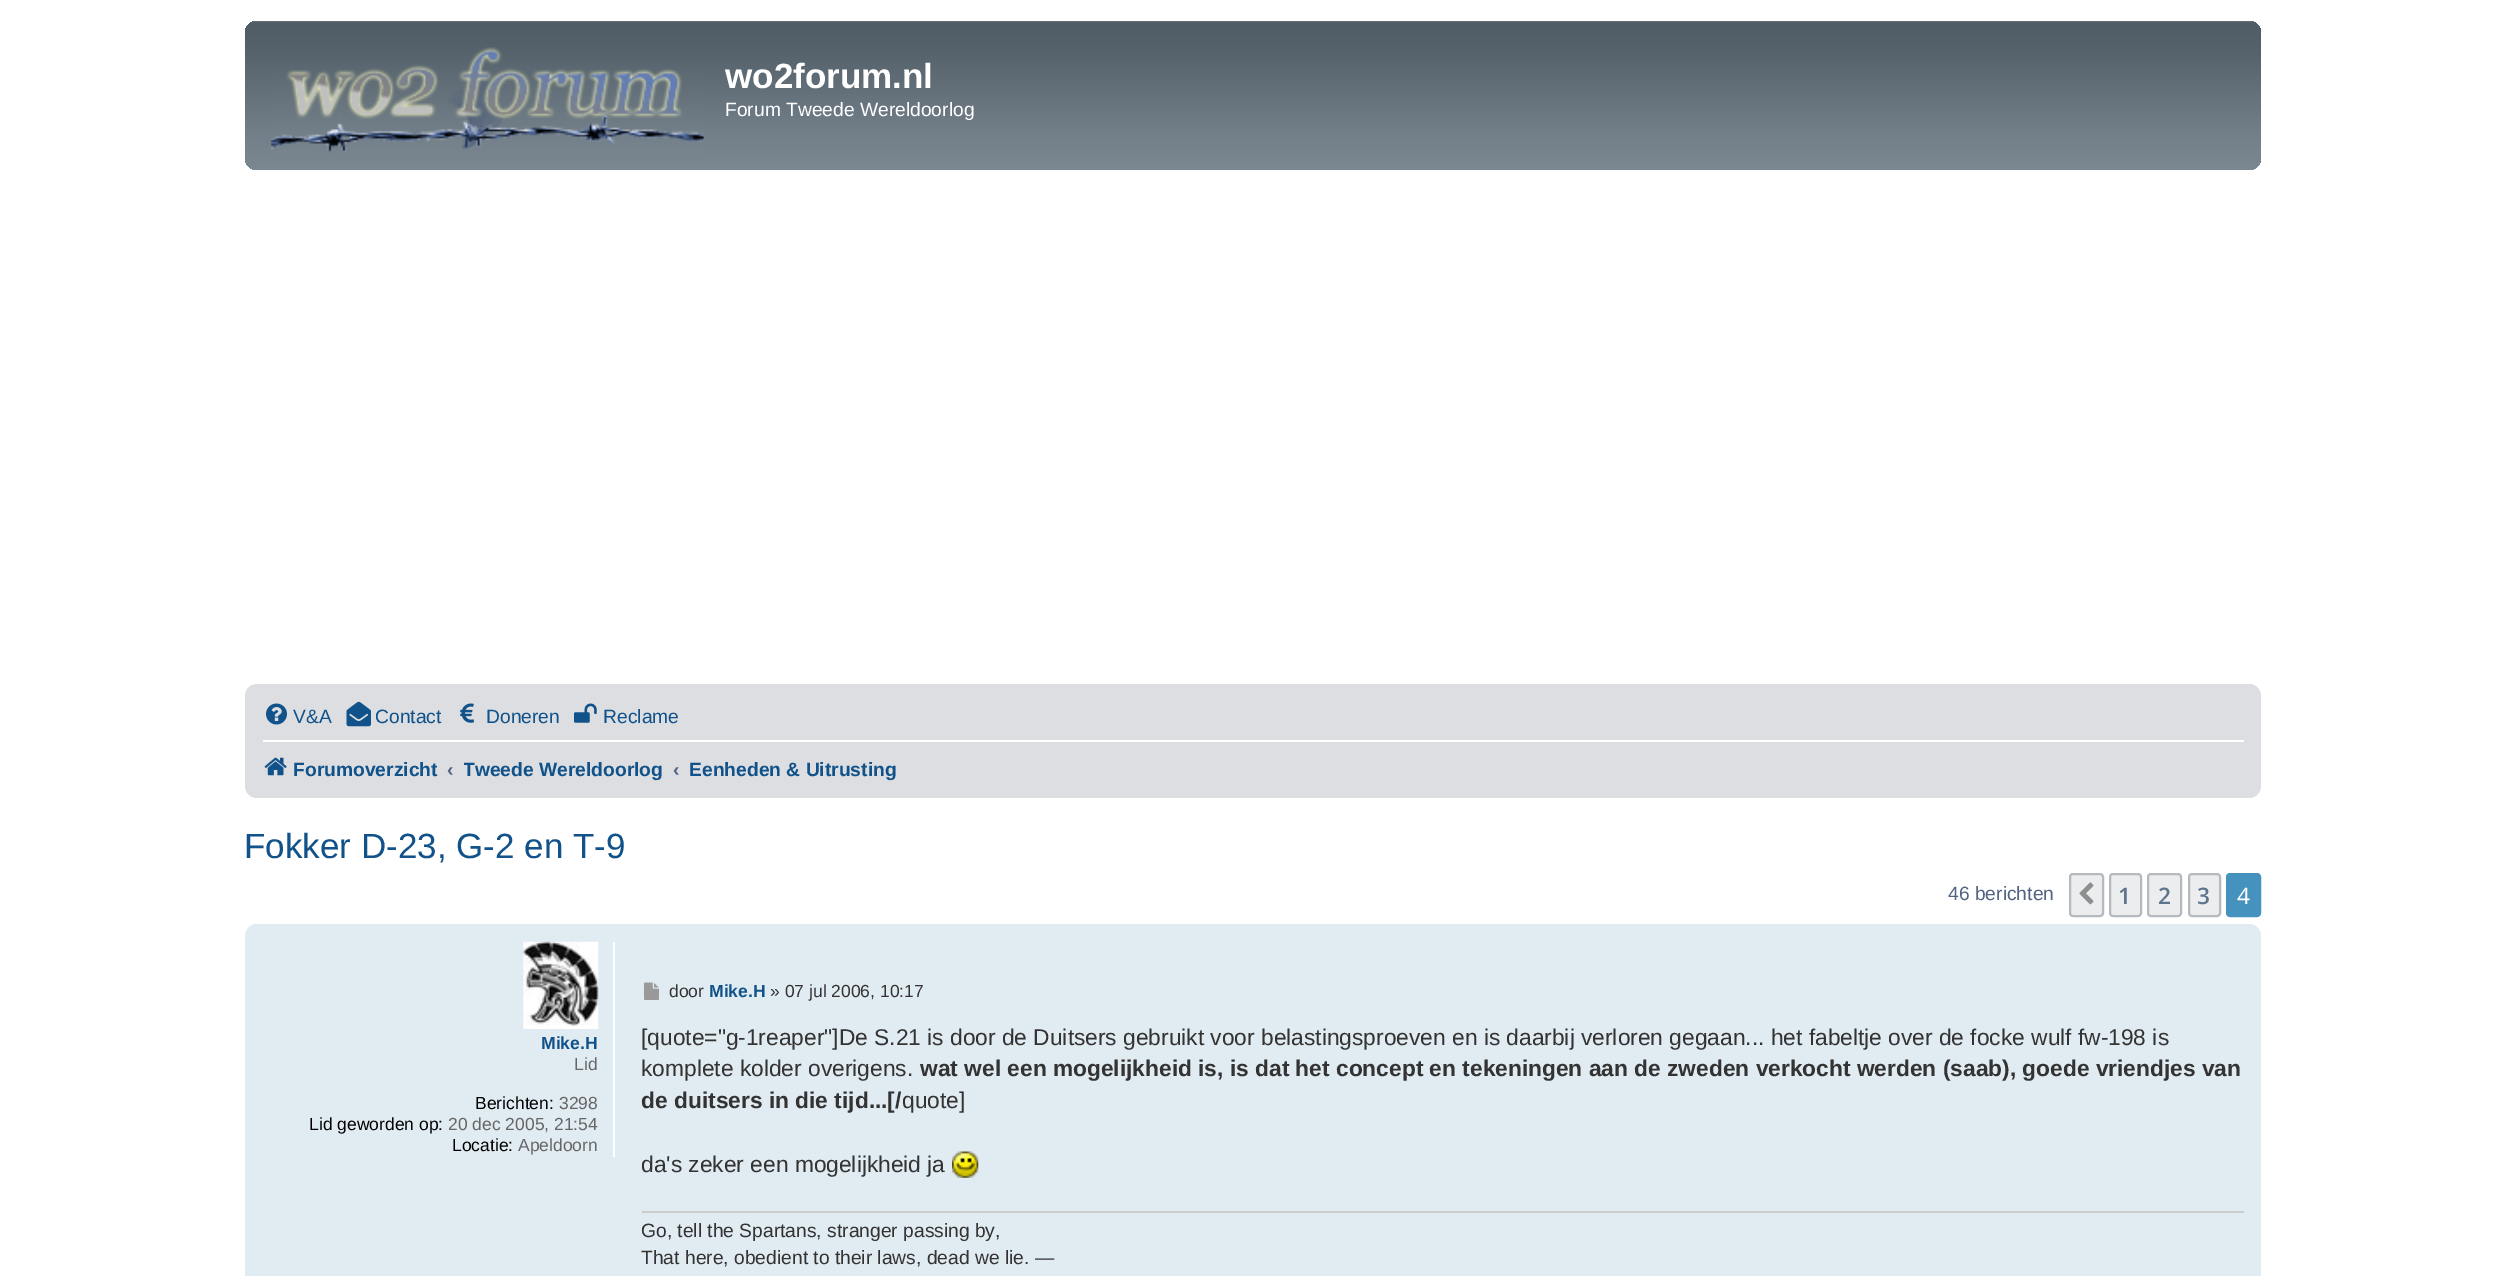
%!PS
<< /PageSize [2503 1276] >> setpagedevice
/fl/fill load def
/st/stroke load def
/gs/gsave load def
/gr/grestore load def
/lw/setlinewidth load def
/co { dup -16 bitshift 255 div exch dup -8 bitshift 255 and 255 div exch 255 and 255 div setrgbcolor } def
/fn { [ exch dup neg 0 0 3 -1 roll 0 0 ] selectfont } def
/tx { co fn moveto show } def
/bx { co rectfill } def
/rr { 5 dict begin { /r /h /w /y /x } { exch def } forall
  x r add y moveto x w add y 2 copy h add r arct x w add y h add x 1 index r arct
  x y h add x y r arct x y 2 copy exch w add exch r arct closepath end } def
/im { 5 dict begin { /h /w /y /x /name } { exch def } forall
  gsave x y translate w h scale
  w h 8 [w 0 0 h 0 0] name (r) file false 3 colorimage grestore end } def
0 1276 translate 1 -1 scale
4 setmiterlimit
0 0 2503 1276 16#FFFFFF bx
gs 245 21 2016 149 12 rr clip newpath
<< /ShadingType 2 /ColorSpace /DeviceRGB /Coords [1253 21 1253 170] /Extend [true true] /Function << /FunctionType 3 /Domain [0 1] /Functions [<< /FunctionType 2 /Domain [0 1] /C0 [.431 .467 .498] /C1 [.314 .361 .396] /N 1 >> << /FunctionType 2 /Domain [0 1] /C0 [.314 .361 .396] /C1 [.337 .384 .42] /N 1 >> << /FunctionType 2 /Domain [0 1] /C0 [.337 .384 .42] /C1 [.451 .498 .533] /N 1 >> << /FunctionType 2 /Domain [0 1] /C0 [.451 .498 .533] /C1 [.486 .533 .569] /N 1 >>] /Bounds [.01 .2 .75] /Encode [0 1 0 1 0 1 0 1] >> >> shfill gr
(media/1.raw) 271 47 433 106 im
16#DCDEE2 co
245 684 2016 114 12 rr fl
(media/2.raw) 266 703 21 22 im
(media/3.raw) 346 701 25 26 im
(media/4.raw) 460 703 15 20 im
(media/5.raw) 574 703 23 20 im
263 740 1981 2 16#FFFFFF bx
(media/6.raw) 264 757 23 19 im
16#ECEDEE co
2070 874 33 42 3 rr gs fl gr
16#B4BAC0 co
2 lw
st
(media/7.raw) 2079 882 15 23 im
16#ECEDEE co
2110 874 31 42 3 rr gs fl gr
16#B4BAC0 co
st
16#ECEDEE co
2148 874 33 42 3 rr gs fl gr
16#B4BAC0 co
st
16#ECEDEE co
2189 874 31 42 3 rr gs fl gr
16#B4BAC0 co
st
16#4692BF co
2227 874 33 42 3 rr gs fl gr
st
16#E1EBF2 co
245 924 2016 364 12 rr fl
613 942 2 215 16#FFFFFF bx
(media/8.raw) 523 941 76 88 im
(media/9.raw) 644 982 15 18 im
(media/10.raw) 952 1151 27 27 im
642 1211 1602 2 16#CCCCCC bx
(wo2forum.nl) 725 88 /LiberationSans-Bold 35 16#FFFFFF tx
(Forum Tweede Wereldoorlog) 725 116 /LiberationSans-Regular 19.25 16#FFFFFF tx
(V&A) 293 723 /LiberationSans-Regular 19.25 16#105289 tx
(Contact) 375 723 /LiberationSans-Regular 19.25 16#105289 tx
(Doneren) 486 723 /LiberationSans-Regular 19.25 16#105289 tx
(Reclame) 603 723 /LiberationSans-Regular 19.25 16#105289 tx
(Forumoverzicht) 293 776 /LiberationSans-Bold 19.25 16#105289 tx
(‹) 447 776 /LiberationSans-Bold 19.25 16#536482 tx
gs
464 747 199 42 rectclip
(Tweede Wereldoorlog) 463 776 /LiberationSans-Bold 19.25 16#105289 tx
gr
(‹) 673 776 /LiberationSans-Bold 19.25 16#536482 tx
(Eenheden & Uitrusting) 689 776 /LiberationSans-Bold 19.25 16#105289 tx
(Fokker D-23, G-2 en T-9) 244 858 /LiberationSans-Regular 35 16#105289 tx
(46 berichten) 1948 900 /LiberationSans-Regular 19.25 16#536482 tx
(1) 2118 904 /OpenSans-SemiBold 22.75 16#5C758C tx
(2) 2158 904 /OpenSans-SemiBold 22.75 16#5C758C tx
(3) 2197 904 /OpenSans-SemiBold 22.75 16#5C758C tx
(4) 2237 904 /OpenSans-Regular 22.75 16#FFFFFF tx
(Mike.H) 541 1049 /LiberationSans-Bold 17.5 16#105289 tx
(Lid) 574 1070 /LiberationSans-Regular 17.5 16#666666 tx
(Berichten:) 475 1109 /LiberationSans-Regular 17.5 16#000000 tx
(3298) 559 1109 /LiberationSans-Regular 17.5 16#666666 tx
(Lid geworden op:) 309 1130 /LiberationSans-Regular 17.5 16#000000 tx
(20 dec 2005, 21:54) 448 1130 /LiberationSans-Regular 17.5 16#666666 tx
(Locatie:) 452 1151 /LiberationSans-Regular 17.5 16#000000 tx
(Apeldoorn) 518 1151 /LiberationSans-Regular 17.5 16#666666 tx
(door) 669 997 /LiberationSans-Regular 17.5 16#333333 tx
(Mike.H) 709 997 /LiberationSans-Bold 17.5 16#105289 tx
(» 07 jul 2006, 10:17) 770 997 /LiberationSans-Regular 17.5 16#333333 tx
([quote="g-1reaper"]De S.21 is door de Duitsers gebruikt voor belastingsproeven en is daarbij verloren gegaan... het fabeltje over de focke wulf fw-198 is) 641 1045 /LiberationSans-Regular 22.75 16#333333 tx
(komplete kolder overigens.) 641 1076 /LiberationSans-Regular 22.75 16#333333 tx
(wat wel een mogelijkheid is, is dat het concept en tekeningen aan de zweden verkocht werden \(saab\), goede vriendjes van) 920 1076 /LiberationSans-Bold 22.75 16#333333 tx
(de duitsers in die tijd...[/) 641 1108 /LiberationSans-Bold 22.75 16#333333 tx
(quote]) 902 1108 /LiberationSans-Regular 22.75 16#333333 tx
(da's zeker een mogelijkheid ja) 641 1172 /LiberationSans-Regular 22.75 16#333333 tx
(Go, tell the Spartans, stranger passing by,) 641 1237 /LiberationSans-Regular 19.25 16#333333 tx
(That here, obedient to their laws, dead we lie. —) 641 1264 /LiberationSans-Regular 19.25 16#333333 tx
showpage
